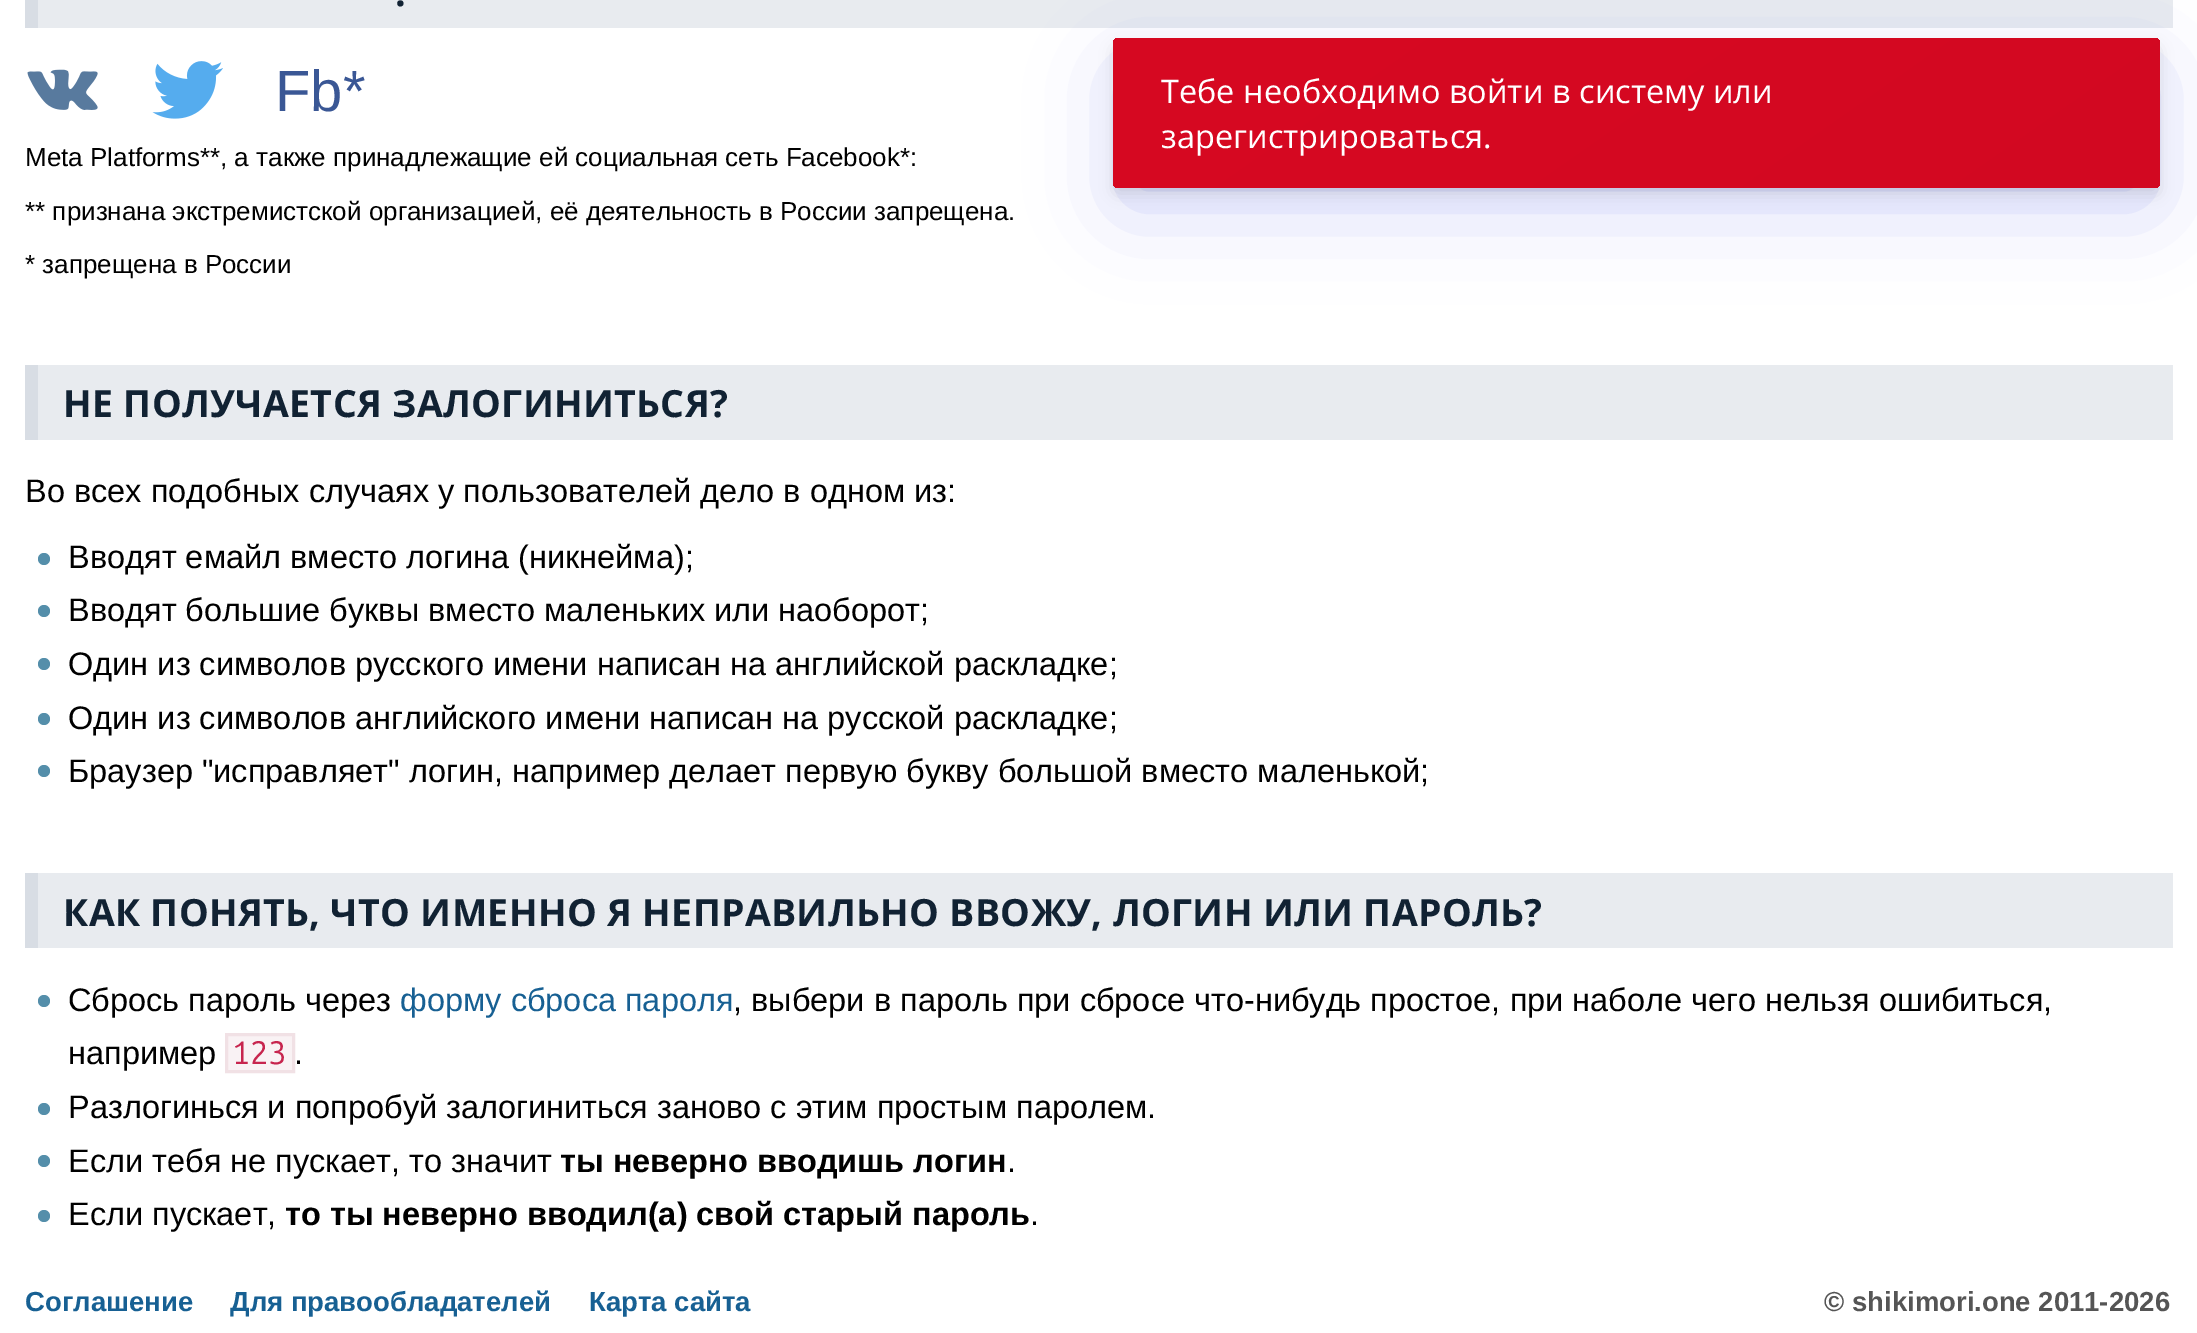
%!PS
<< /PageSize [2197 1333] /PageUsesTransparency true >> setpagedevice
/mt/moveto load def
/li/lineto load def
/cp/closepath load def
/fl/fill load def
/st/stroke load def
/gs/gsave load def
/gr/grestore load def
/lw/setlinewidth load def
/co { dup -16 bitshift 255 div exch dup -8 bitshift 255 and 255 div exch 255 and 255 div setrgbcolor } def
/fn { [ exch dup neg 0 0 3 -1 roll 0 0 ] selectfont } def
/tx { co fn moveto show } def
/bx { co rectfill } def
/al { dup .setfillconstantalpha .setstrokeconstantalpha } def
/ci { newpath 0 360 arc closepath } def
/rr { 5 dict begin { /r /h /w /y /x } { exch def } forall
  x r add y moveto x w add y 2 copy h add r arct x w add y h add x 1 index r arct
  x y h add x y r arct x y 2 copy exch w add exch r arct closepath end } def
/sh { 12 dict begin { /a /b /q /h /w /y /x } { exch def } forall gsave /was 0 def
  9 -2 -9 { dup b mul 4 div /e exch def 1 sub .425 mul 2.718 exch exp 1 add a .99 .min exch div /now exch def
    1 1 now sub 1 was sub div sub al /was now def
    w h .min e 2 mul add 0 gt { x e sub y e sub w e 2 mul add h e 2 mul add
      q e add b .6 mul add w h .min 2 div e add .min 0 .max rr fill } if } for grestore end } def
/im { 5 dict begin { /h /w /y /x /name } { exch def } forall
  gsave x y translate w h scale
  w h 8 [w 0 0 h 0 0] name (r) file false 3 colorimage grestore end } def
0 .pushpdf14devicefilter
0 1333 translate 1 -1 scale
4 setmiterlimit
0 0 2197 1333 16#FFFFFF bx
38 0 2135 28 16#E8EBEF bx
25 0 13 28 16#D8DDE4 bx
(media/1.raw) 27 69 71 41 im
(media/2.raw) 152 61 71 58 im
38 365 2135 75 16#E8EBEF bx
25 365 13 75 16#D8DDE4 bx
16#548EAA co
44 559 6 ci fl
44 611 6 ci fl
44 664 6 ci fl
44 719 6 ci fl
44 771 6 ci fl
38 873 2135 75 16#E8EBEF bx
25 873 13 75 16#D8DDE4 bx
16#548EAA co
44 1001 6 ci fl
16#F9F2F4 co
226.5 1034.5 mt 293.5 1034.5 li 293.5 1071.5 li 226.5 1071.5 li cp gs fl gr
16#F1E1E5 co
3 lw
st
16#548EAA co
44 1109 6 ci fl
44 1161 6 ci fl
44 1216 6 ci fl
16#4D60E8 co
1123 73 1027 130 0 45 .3 sh
16#000000 co
1115 48 1043 145 2.5 7.5 .12 sh
gs 1113 38 1047 150 5 rr clip newpath
<< /ShadingType 2 /ColorSpace /DeviceRGB /Coords [1429 -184 1844 409] /Extend [true true] /Function << /FunctionType 2 /Domain [0 1] /C0 [.843 .035 .129] /C1 [.824 .031 .129] /N 1 >> >> shfill gr
/OpenSans-Bold 37.5 fn
16#112233 co
395 6 mt .33 0 (.) ashow
(Fb*) 275 111 /LiberationSans-Regular 58 16#3A5795 tx
(Meta Platforms**, а также принадлежащие ей социальная сеть Facebook*:) 25 166 /LiberationSans-Regular 26 16#000000 tx
(** признана экстремистской организацией, её деятельность в России запрещена.) 25 220 /LiberationSans-Regular 26 16#000000 tx
(* запрещена в России) 25 273 /LiberationSans-Regular 26 16#000000 tx
/OpenSans-Bold 37.5 fn
16#112233 co
63 417 mt .33 0 (НЕ ПОЛУЧАЕТСЯ ЗАЛОГИНИТЬСЯ?) ashow
(Во всех подобных случаях у пользователей дело в одном из:) 25 502 /LiberationSans-Regular 32.5 16#000000 tx
(Вводят емайл вместо логина \(никнейма\);) 68 568 /LiberationSans-Regular 32.5 16#000000 tx
(Вводят большие буквы вместо маленьких или наоборот;) 68 621 /LiberationSans-Regular 32.5 16#000000 tx
(Один из символов русского имени написан на английской раскладке;) 68 675 /LiberationSans-Regular 32.5 16#000000 tx
(Один из символов английского имени написан на русской раскладке;) 68 729 /LiberationSans-Regular 32.5 16#000000 tx
(Браузер "исправляет" логин, например делает первую букву большой вместо маленькой;) 68 782 /LiberationSans-Regular 32.5 16#000000 tx
/OpenSans-Bold 37.5 fn
16#112233 co
63 926 mt .33 0 (КАК ПОНЯТЬ, ЧТО ИМЕННО Я НЕПРАВИЛЬНО ВВОЖУ, ЛОГИН ИЛИ ПАРОЛЬ?) ashow
(Сбрось пароль через) 68 1011 /LiberationSans-Regular 32.5 16#000000 tx
(форму сброса пароля) 400 1011 /LiberationSans-Regular 32.5 16#176093 tx
(, выбери в пароль при сбросе что-нибудь простое, при наболе чего нельзя ошибиться,) 733 1011 /LiberationSans-Regular 32.5 16#000000 tx
(например) 68 1064 /LiberationSans-Regular 32.5 16#000000 tx
(123) 232 1064 /UbuntuMono-Regular 32.5 16#C7254E tx
(.) 294 1064 /LiberationSans-Regular 32.5 16#000000 tx
(Разлогинься и попробуй залогиниться заново с этим простым паролем.) 68 1118 /LiberationSans-Regular 32.5 16#000000 tx
(Если тебя не пускает, то значит) 68 1172 /LiberationSans-Regular 32.5 16#000000 tx
(ты неверно вводишь логин) 560 1172 /LiberationSans-Bold 32.5 16#000000 tx
(.) 1007 1172 /LiberationSans-Regular 32.5 16#000000 tx
(Если пускает,) 68 1225 /LiberationSans-Regular 32.5 16#000000 tx
(то ты неверно вводил\(а\) свой старый пароль) 285 1225 /LiberationSans-Bold 32.5 16#000000 tx
(.) 1030 1225 /LiberationSans-Regular 32.5 16#000000 tx
(Соглашение) 25 1311 /LiberationSans-Bold 27.5 16#176093 tx
(Для правообладателей) 230 1311 /LiberationSans-Bold 27.5 16#176093 tx
(Карта сайта) 589 1311 /LiberationSans-Bold 27.5 16#176093 tx
(© shikimori.one 2011-2026) 1824 1311 /LiberationSans-Bold 27.5 16#555555 tx
(Тебе необходимо войти в систему или) 1161 103 /OpenSans-Regular 32.5 16#FFFFFF tx
(зарегистрироваться.) 1161 148 /OpenSans-Regular 32.5 16#FFFFFF tx
.poppdf14devicefilter showpage
